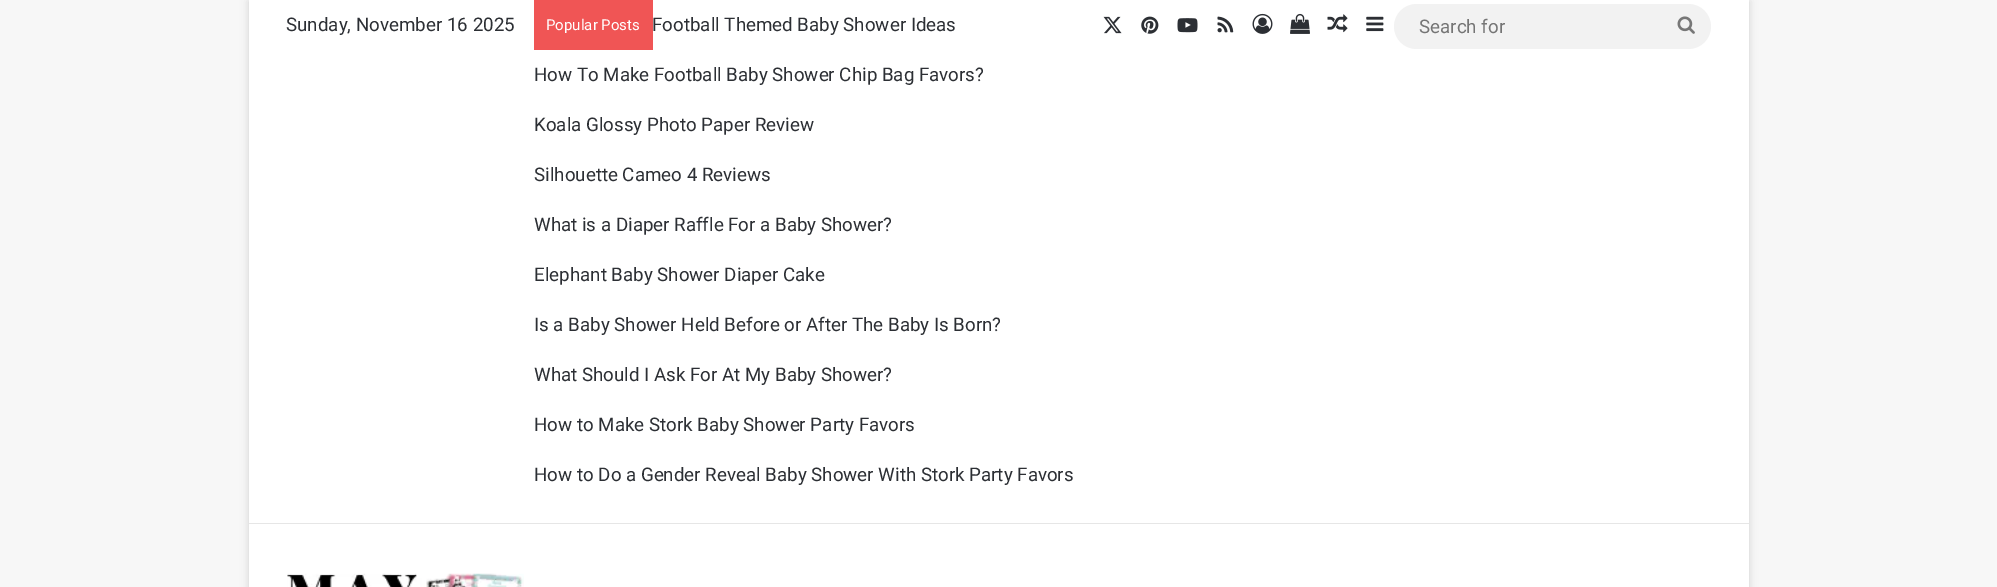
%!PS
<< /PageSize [1997 587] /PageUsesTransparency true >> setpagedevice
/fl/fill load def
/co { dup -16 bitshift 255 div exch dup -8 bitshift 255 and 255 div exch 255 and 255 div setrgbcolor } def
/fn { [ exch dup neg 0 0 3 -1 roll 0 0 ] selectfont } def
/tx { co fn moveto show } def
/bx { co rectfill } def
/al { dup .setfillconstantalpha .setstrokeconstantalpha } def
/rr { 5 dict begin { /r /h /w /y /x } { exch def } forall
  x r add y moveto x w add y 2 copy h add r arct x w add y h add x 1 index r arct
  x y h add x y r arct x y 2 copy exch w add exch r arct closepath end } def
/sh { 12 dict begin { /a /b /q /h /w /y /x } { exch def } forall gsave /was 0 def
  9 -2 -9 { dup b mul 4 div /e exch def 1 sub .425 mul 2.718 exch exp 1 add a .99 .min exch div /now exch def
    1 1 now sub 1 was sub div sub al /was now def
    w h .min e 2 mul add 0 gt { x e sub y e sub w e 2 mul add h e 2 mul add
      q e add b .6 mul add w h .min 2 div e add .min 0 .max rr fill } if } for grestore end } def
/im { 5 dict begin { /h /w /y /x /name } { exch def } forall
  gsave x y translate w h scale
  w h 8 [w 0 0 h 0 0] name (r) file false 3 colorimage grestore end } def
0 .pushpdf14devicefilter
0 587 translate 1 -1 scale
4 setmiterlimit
0 0 1997 587 16#F7F7F7 bx
16#ABABAB co
249 1 1500 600 0 4.5 .5 sh
249 0 1500 587 16#FFFFFF bx
249 523 1500 1 16#E6E6E6 bx
534 0 119 50 16#F05555 bx
(media/1.raw) 1103 16 19 18 im
(media/2.raw) 1141 16 18 18 im
(media/3.raw) 1177 18 21 15 im
(media/4.raw) 1217 16 17 17 im
(media/5.raw) 1252 13 21 21 im
(media/6.raw) 1290 13 20 21 im
(media/7.raw) 1327 14 21 19 im
(media/8.raw) 1366 16 18 16 im
16#F2F2F2 co
1394 4 317 45 22.5 rr fl
(media/9.raw) 1677 16 18 18 im
(media/10.raw) 287 573 237 14 im
(Sunday, November 16 2025) 286 31 /Roboto-Regular 18.75 16#2C2F34 tx
(Football Themed Baby Shower Ideas) 652 31 /Roboto-Regular 18.75 16#2C2F34 tx
(How To Make Football Baby Shower Chip Bag Favors?) 534 81 /Roboto-Regular 18.75 16#2C2F34 tx
(Koala Glossy Photo Paper Review) 534 131 /Roboto-Regular 18.75 16#2C2F34 tx
(Silhouette Cameo 4 Reviews) 534 181 /Roboto-Regular 18.75 16#2C2F34 tx
(What is a Diaper Raffle For a Baby Shower?) 534 231 /Roboto-Regular 18.75 16#2C2F34 tx
(Elephant Baby Shower Diaper Cake) 534 281 /Roboto-Regular 18.75 16#2C2F34 tx
(Is a Baby Shower Held Before or After The Baby Is Born?) 534 331 /Roboto-Regular 18.75 16#2C2F34 tx
(What Should I Ask For At My Baby Shower?) 534 381 /Roboto-Regular 18.75 16#2C2F34 tx
(How to Make Stork Baby Shower Party Favors) 534 431 /Roboto-Regular 18.75 16#2C2F34 tx
(How to Do a Gender Reveal Baby Shower With Stork Party Favors) 534 481 /Roboto-Regular 18.75 16#2C2F34 tx
(Popular Posts) 546 30 /Roboto-Regular 15 16#FFFFFF tx
(Search for) 1419 33 /Roboto-Regular 18.75 16#757575 tx
.poppdf14devicefilter showpage
